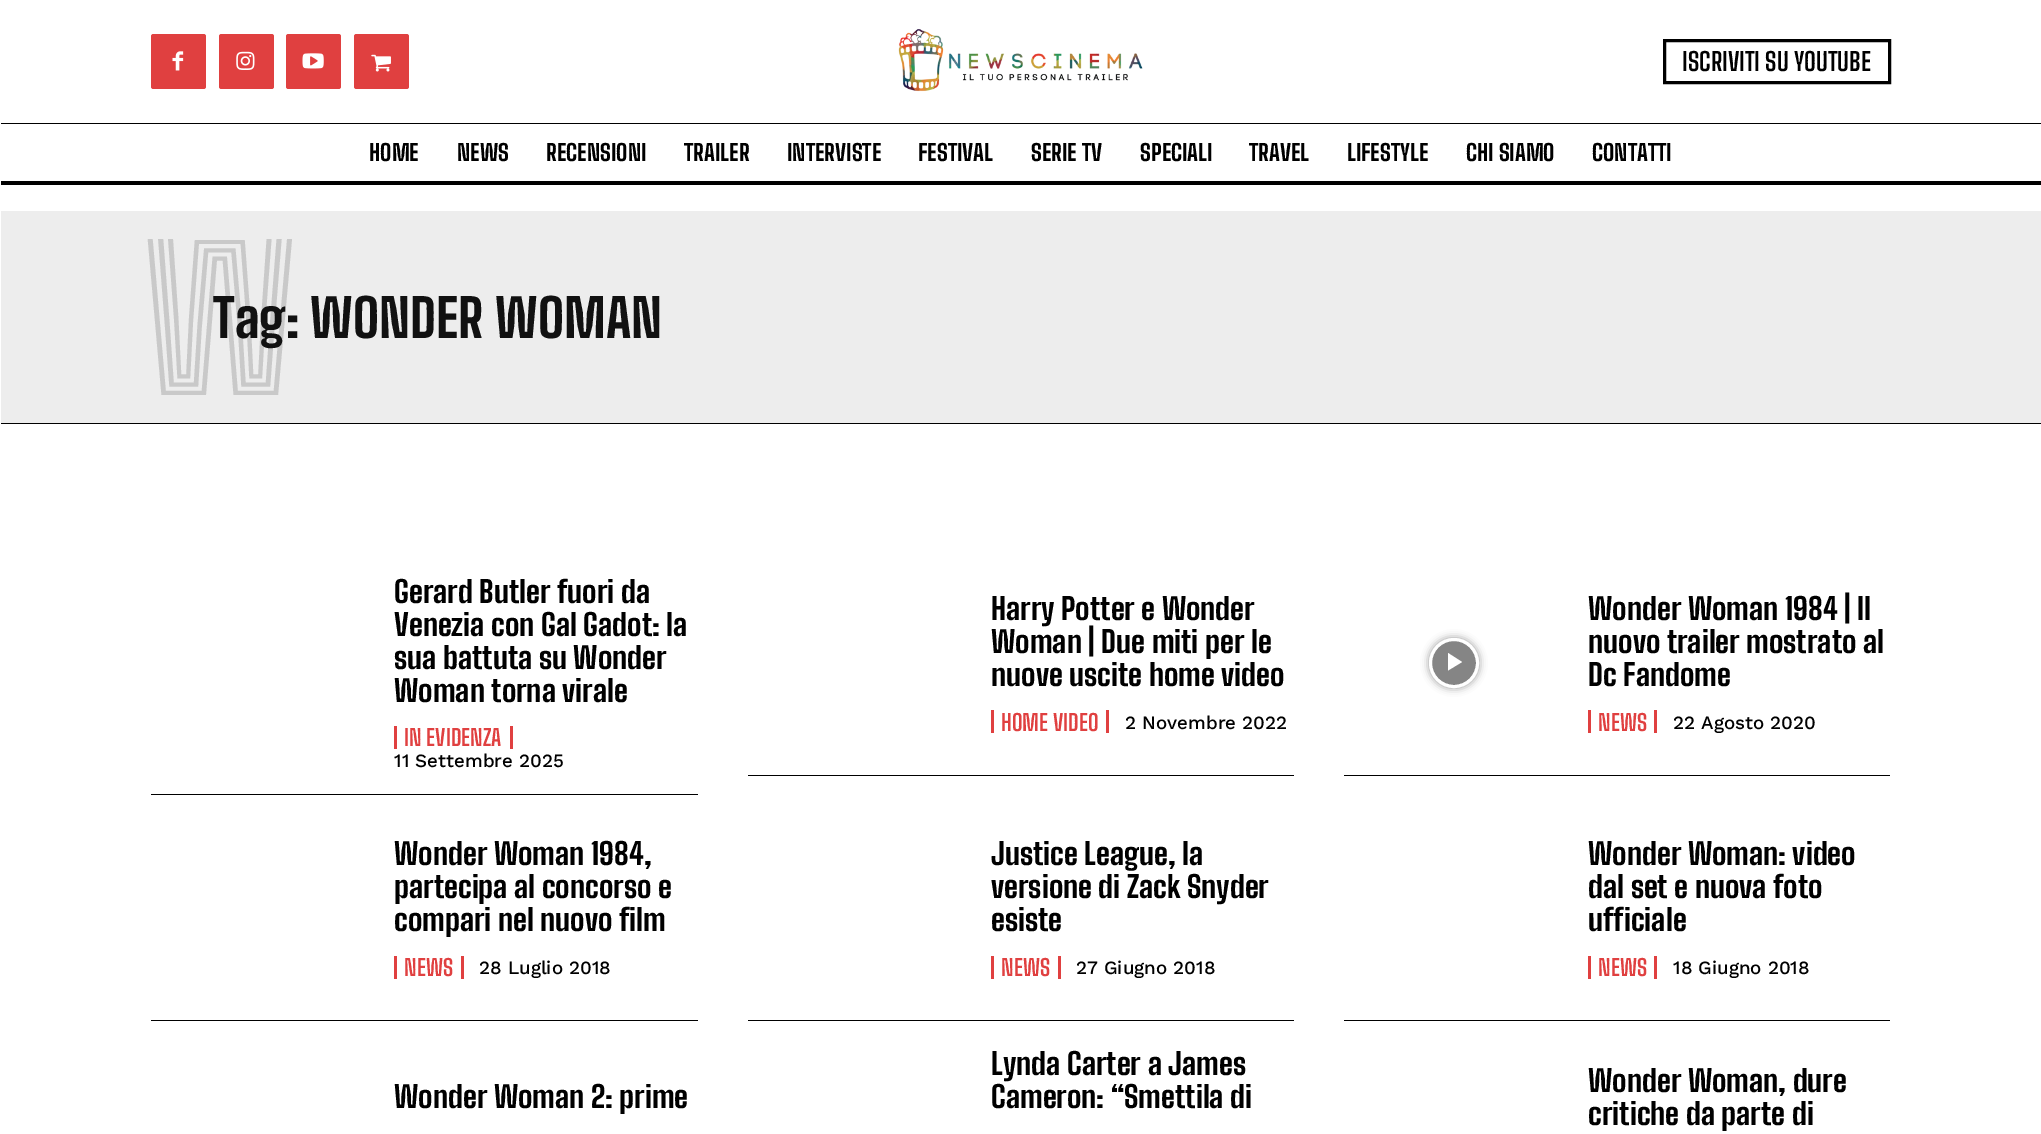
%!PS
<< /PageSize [2041 1134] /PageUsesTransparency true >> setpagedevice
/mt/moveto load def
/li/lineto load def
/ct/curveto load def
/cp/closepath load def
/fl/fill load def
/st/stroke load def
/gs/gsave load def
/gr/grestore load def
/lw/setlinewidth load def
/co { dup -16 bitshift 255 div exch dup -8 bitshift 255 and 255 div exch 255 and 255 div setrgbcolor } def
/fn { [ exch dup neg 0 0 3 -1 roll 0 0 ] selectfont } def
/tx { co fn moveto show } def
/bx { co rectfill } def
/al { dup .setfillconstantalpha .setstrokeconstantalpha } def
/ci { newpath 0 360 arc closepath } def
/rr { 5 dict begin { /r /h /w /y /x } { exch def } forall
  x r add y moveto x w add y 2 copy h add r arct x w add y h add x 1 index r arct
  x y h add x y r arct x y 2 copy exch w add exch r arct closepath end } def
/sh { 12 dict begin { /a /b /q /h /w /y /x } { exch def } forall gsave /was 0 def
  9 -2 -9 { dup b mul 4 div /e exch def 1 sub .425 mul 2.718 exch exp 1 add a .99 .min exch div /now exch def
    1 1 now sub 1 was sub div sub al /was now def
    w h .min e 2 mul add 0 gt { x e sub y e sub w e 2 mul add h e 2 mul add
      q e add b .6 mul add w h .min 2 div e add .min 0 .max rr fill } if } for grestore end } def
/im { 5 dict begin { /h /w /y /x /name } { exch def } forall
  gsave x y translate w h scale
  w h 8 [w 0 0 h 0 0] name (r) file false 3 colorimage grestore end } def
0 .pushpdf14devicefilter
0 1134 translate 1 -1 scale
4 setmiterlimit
0 0 2041 1134 16#FFFFFF bx
16#E04040 co
151 34 55 55 2.5 rr fl
(media/1.raw) 172 51 12 20 im
219 34 55 55 2.5 rr fl
(media/2.raw) 236 51 19 19 im
286 34 55 55 2.5 rr fl
(media/3.raw) 302 53 22 16 im
354 34 55 55 2.5 rr fl
(media/4.raw) 371 54 20 18 im
(media/5.raw) 898 29 245 63 im
16#000000 co
3 lw
1664.5 40.5 225 42 rectstroke
1 123 2040 1 16#000000 bx
1 181 2040 4 16#000000 bx
1 211 2040 212 16#EDEDED bx
1 423 2040 1 16#000000 bx
151 794 547 1 16#000000 bx
510 726 3 23 16#E04040 bx
394 726 3 23 16#E04040 bx
748 775 546 1 16#000000 bx
1106 710 3 23 16#E04040 bx
991 710 3 23 16#E04040 bx
1344 775 546 1 16#000000 bx
gs
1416 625 mt 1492 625 li 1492 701 li 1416 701 li cp 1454 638 mt 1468 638 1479 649 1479 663 ct 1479 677 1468 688 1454 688 ct 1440 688 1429 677 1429 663 ct 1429 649 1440 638 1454 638 ct cp eoclip newpath
1429 638 50 50 25 4 .4 sh
gr
0.48 al
1454 663 23.5 ci fl
1 al
16#FFFFFF co
1454 663 23.5 ci st
1448 653 mt 1448 670.5 li 1462 662 li cp fl
1654 710 3 23 16#E04040 bx
1588 710 3 23 16#E04040 bx
151 1020 547 1 16#000000 bx
461 956 3 23 16#E04040 bx
394 956 3 23 16#E04040 bx
748 1020 546 1 16#000000 bx
1058 956 3 23 16#E04040 bx
991 956 3 23 16#E04040 bx
1344 1020 546 1 16#000000 bx
1654 956 3 23 16#E04040 bx
1588 956 3 23 16#E04040 bx
(ISCRIVITI SU YOUTUBE) 1682 71 /BigShouldersText-Bold 25 16#000000 tx
(HOME) 369 161 /BigShouldersText-ExtraBold 22.5 16#000000 tx
(NEWS) 457 161 /BigShouldersText-ExtraBold 22.5 16#000000 tx
(RECENSIONI) 546 161 /BigShouldersText-ExtraBold 22.5 16#000000 tx
(TRAILER) 684 161 /BigShouldersText-ExtraBold 22.5 16#000000 tx
(INTERVISTE) 787 161 /BigShouldersText-ExtraBold 22.5 16#000000 tx
(FESTIVAL) 918 161 /BigShouldersText-ExtraBold 22.5 16#000000 tx
(SERIE TV) 1031 161 /BigShouldersText-ExtraBold 22.5 16#000000 tx
(SPECIALI) 1140 161 /BigShouldersText-ExtraBold 22.5 16#000000 tx
(TRAVEL) 1249 161 /BigShouldersText-ExtraBold 22.5 16#000000 tx
(LIFESTYLE) 1347 161 /BigShouldersText-ExtraBold 22.5 16#000000 tx
(CHI SIAMO) 1466 161 /BigShouldersText-ExtraBold 22.5 16#000000 tx
(CONTATTI) 1592 161 /BigShouldersText-ExtraBold 22.5 16#000000 tx
(W) 143 395 /BigShouldersInlineText-ExtraBold 195 16#C9C9C9 tx
(Tag: WONDER WOMAN) 213 338 /BigShouldersText-ExtraBold 52.5 16#111111 tx
(Gerard Butler fuori da) 394 603 /BigShouldersText-ExtraBold 30 16#000000 tx
(Venezia con Gal Gadot: la) 394 636 /BigShouldersText-ExtraBold 30 16#000000 tx
(sua battuta su Wonder) 394 669 /BigShouldersText-ExtraBold 30 16#000000 tx
(Woman torna virale) 394 702 /BigShouldersText-ExtraBold 30 16#000000 tx
(IN EVIDENZA) 404 746 /BigShouldersText-Bold 22.5 16#E04040 tx
(11 Settembre 2025) 394 767 /WorkSans-Medium 18.75 16#000000 tx
(Harry Potter e Wonder) 991 620 /BigShouldersText-ExtraBold 30 16#000000 tx
(Woman | Due miti per le) 991 653 /BigShouldersText-ExtraBold 30 16#000000 tx
(nuove uscite home video) 991 686 /BigShouldersText-ExtraBold 30 16#000000 tx
(HOME VIDEO) 1001 731 /BigShouldersText-Bold 22.5 16#E04040 tx
(2 Novembre 2022) 1125 729 /WorkSans-Medium 18.75 16#000000 tx
(Wonder Woman 1984 | Il) 1588 620 /BigShouldersText-ExtraBold 30 16#000000 tx
(nuovo trailer mostrato al) 1588 653 /BigShouldersText-ExtraBold 30 16#000000 tx
(Dc Fandome) 1588 686 /BigShouldersText-ExtraBold 30 16#000000 tx
(NEWS) 1598 731 /BigShouldersText-Bold 22.5 16#E04040 tx
(22 Agosto 2020) 1673 729 /WorkSans-Medium 18.75 16#000000 tx
(Wonder Woman 1984,) 394 865 /BigShouldersText-ExtraBold 30 16#000000 tx
(partecipa al concorso e) 394 898 /BigShouldersText-ExtraBold 30 16#000000 tx
(compari nel nuovo film) 394 931 /BigShouldersText-ExtraBold 30 16#000000 tx
(NEWS) 404 976 /BigShouldersText-Bold 22.5 16#E04040 tx
(28 Luglio 2018) 479 974 /WorkSans-Medium 18.75 16#000000 tx
(Justice League, la) 991 865 /BigShouldersText-ExtraBold 30 16#000000 tx
(versione di Zack Snyder) 991 898 /BigShouldersText-ExtraBold 30 16#000000 tx
(esiste) 991 931 /BigShouldersText-ExtraBold 30 16#000000 tx
(NEWS) 1001 976 /BigShouldersText-Bold 22.5 16#E04040 tx
(27 Giugno 2018) 1076 974 /WorkSans-Medium 18.75 16#000000 tx
(Wonder Woman: video) 1588 865 /BigShouldersText-ExtraBold 30 16#000000 tx
(dal set e nuova foto) 1588 898 /BigShouldersText-ExtraBold 30 16#000000 tx
(ufficiale) 1588 931 /BigShouldersText-ExtraBold 30 16#000000 tx
(NEWS) 1598 976 /BigShouldersText-Bold 22.5 16#E04040 tx
(18 Giugno 2018) 1673 974 /WorkSans-Medium 18.75 16#000000 tx
(Wonder Woman 2: prime) 394 1108 /BigShouldersText-ExtraBold 30 16#000000 tx
(Lynda Carter a James) 991 1075 /BigShouldersText-ExtraBold 30 16#000000 tx
(Cameron: “Smettila di) 991 1108 /BigShouldersText-ExtraBold 30 16#000000 tx
(Wonder Woman, dure) 1588 1092 /BigShouldersText-ExtraBold 30 16#000000 tx
(critiche da parte di) 1588 1125 /BigShouldersText-ExtraBold 30 16#000000 tx
.poppdf14devicefilter showpage
